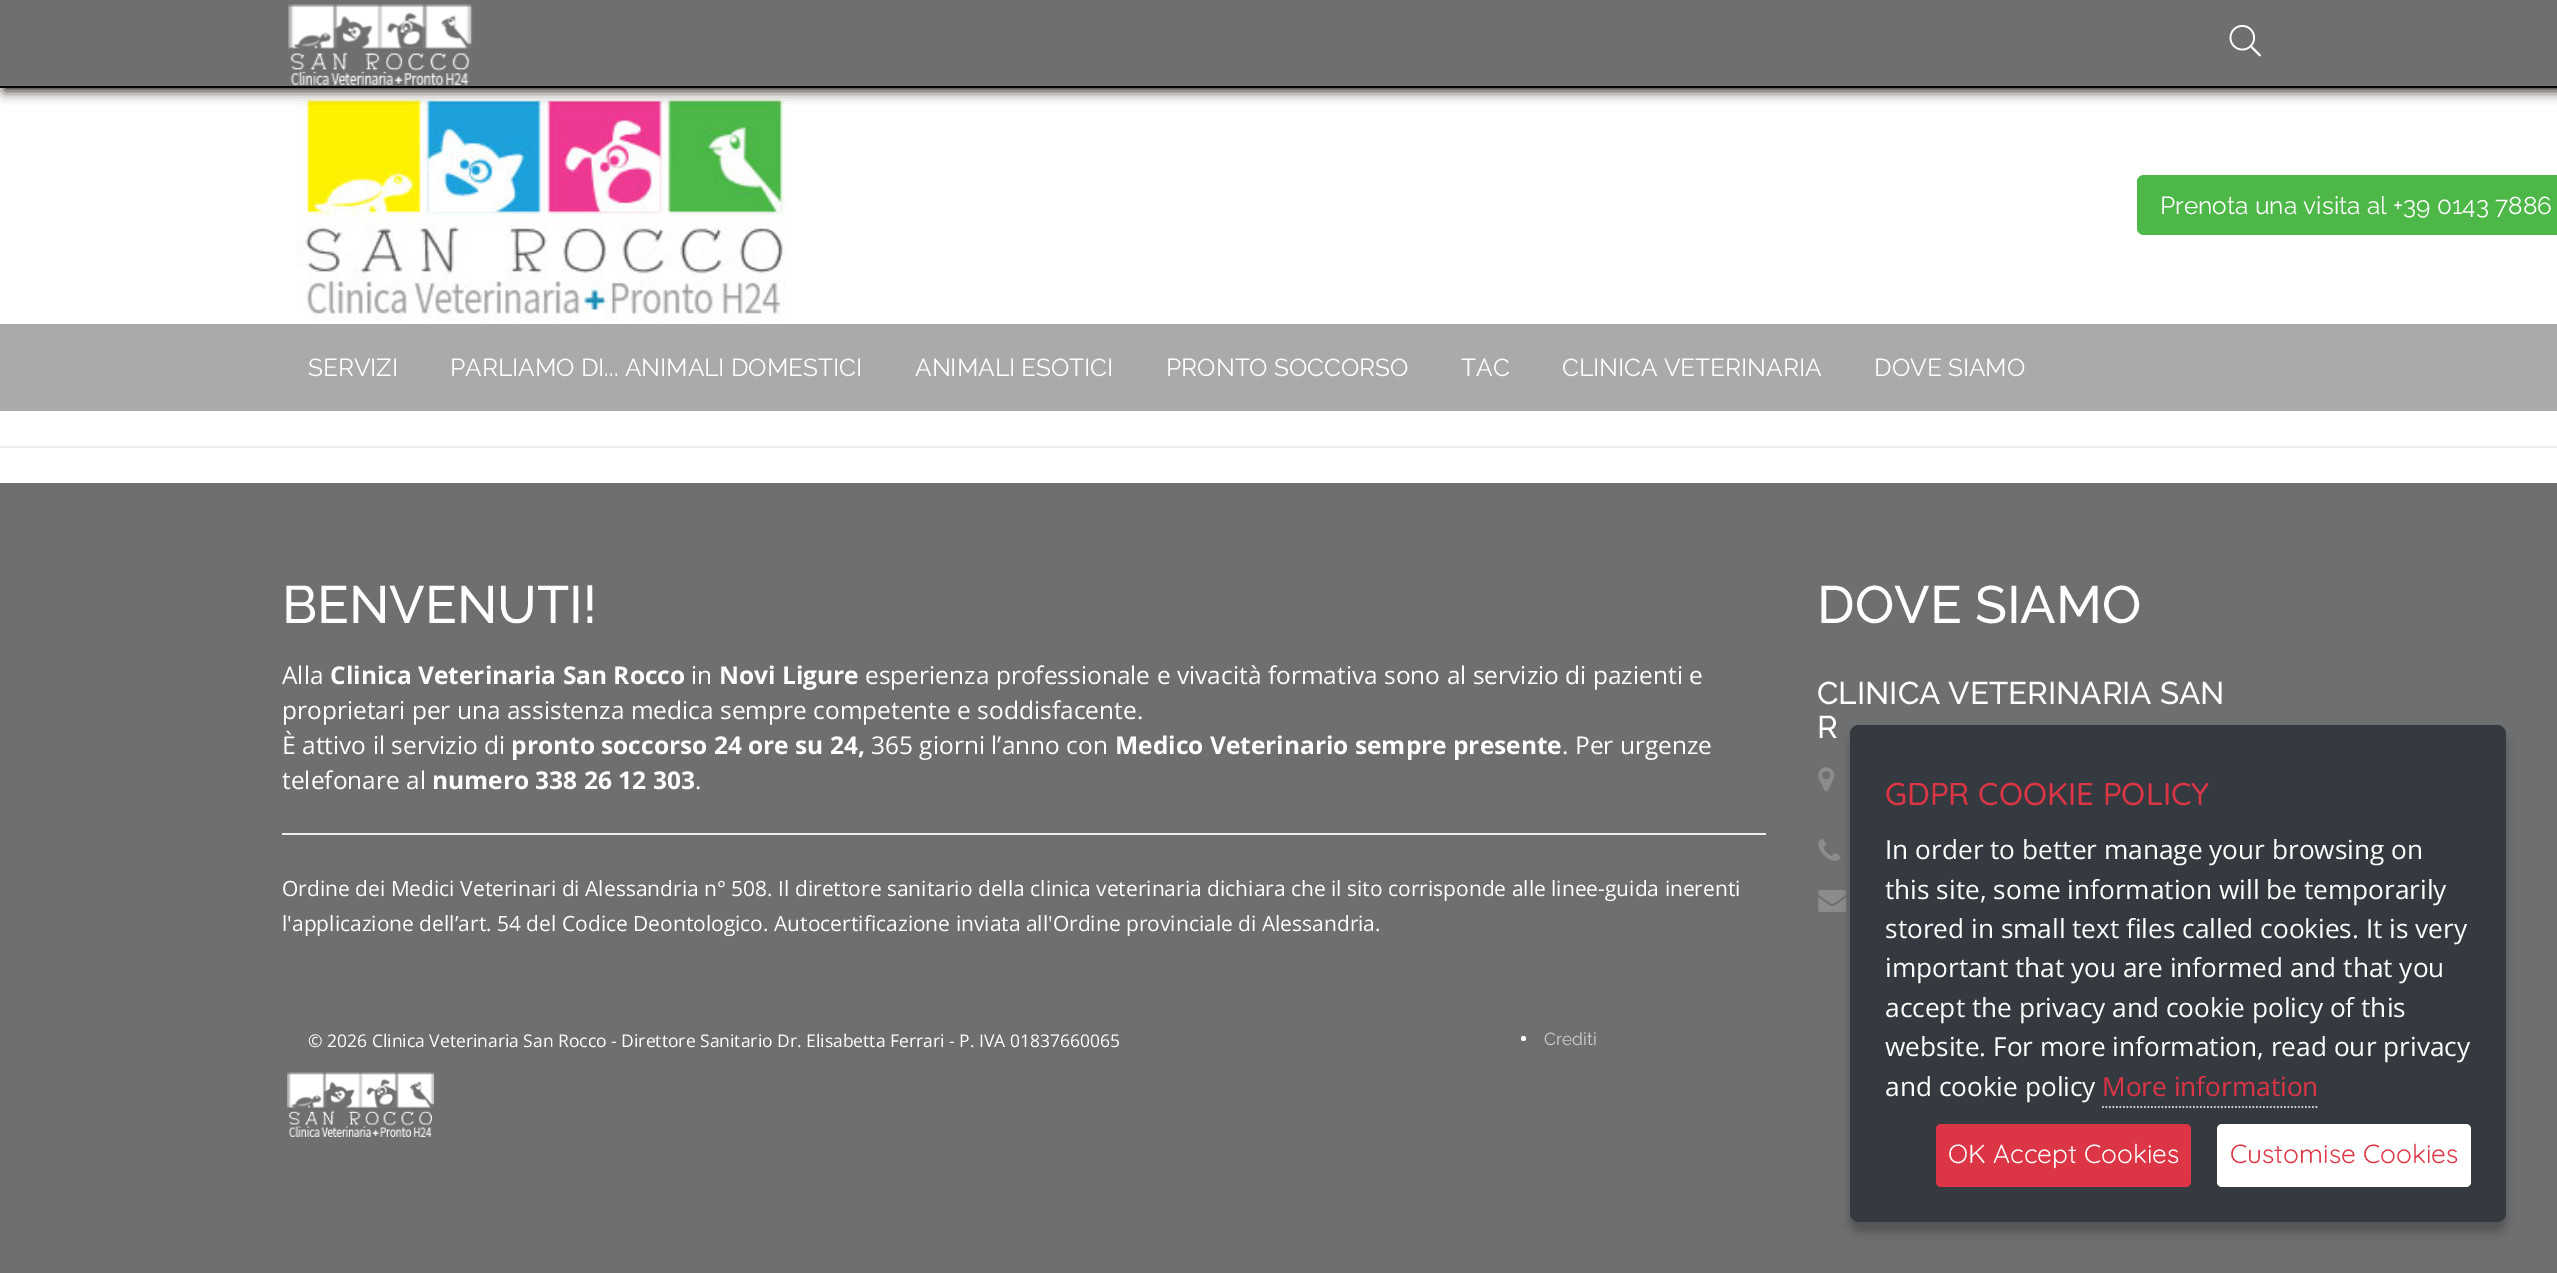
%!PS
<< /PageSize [2557 1273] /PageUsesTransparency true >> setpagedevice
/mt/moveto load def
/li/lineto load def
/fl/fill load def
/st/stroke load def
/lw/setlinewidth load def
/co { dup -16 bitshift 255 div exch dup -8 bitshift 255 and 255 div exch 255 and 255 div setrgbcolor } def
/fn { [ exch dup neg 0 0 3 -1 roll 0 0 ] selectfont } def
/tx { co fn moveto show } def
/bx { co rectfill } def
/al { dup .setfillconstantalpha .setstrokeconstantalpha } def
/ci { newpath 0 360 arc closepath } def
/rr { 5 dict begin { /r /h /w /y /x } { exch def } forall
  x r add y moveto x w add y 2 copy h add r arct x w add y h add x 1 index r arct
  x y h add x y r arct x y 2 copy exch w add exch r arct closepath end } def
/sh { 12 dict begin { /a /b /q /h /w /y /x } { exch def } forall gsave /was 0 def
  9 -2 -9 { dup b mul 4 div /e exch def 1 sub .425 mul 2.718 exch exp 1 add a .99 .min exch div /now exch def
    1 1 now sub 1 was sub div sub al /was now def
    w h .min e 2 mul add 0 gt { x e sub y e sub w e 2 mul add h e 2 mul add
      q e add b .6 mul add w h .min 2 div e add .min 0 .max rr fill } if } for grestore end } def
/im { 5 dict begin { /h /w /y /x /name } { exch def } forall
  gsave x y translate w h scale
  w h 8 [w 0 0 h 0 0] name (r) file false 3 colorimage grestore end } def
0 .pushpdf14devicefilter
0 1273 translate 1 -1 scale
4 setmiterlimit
0 0 2557 1273 16#FFFFFF bx
(media/3.raw) 296 99 490 225 im
16#241D10 co
4 4 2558 87 0 6 1 sh
0 0 2557 86 16#6D6F71 bx
0 86 2557 2 16#080808 bx
(media/1.raw) 288 4 185 82 im
(media/2.raw) 2229 24 32 33 im
16#4DB748 co
2137 175 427 60 7 rr fl
0 324 2557 87 16#AAAAAA bx
0 446 2557 2 16#EEEEEE bx
0 483 2557 790 16#6D6F71 bx
282 833 1484 2 16#EEEEEE bx
16#FFFFFF co
1523.5 1038.5 2.5 ci fl
(media/4.raw) 287 1072 148 65 im
(media/5.raw) 1818 767 17 25 im
(media/6.raw) 1818 839 23 22 im
(media/7.raw) 1818 890 29 22 im
16#000000 co
1850 735 656 497 9 5 .25 sh
16#343A40 co
1850 725 656 497 9 rr fl
16#CCCECF co
1.8 lw
[1.75 1.75] 0 setdash
2102 1107 mt 2319 1107 li st
16#DC3545 co
1936 1124 255 63 5 rr fl
16#FFFFFF co
2217 1124 254 63 5 rr fl
(Prenota una visita al +39 0143 7886) 2160 214 /Raleway-Regular 24.5 16#FFFFFF tx
(SERVIZI) 308 376 /Raleway-Regular 24.5 16#FFFFFF tx
(PARLIAMO DI... ANIMALI DOMESTICI) 450 376 /Raleway-Regular 24.5 16#FFFFFF tx
(ANIMALI ESOTICI) 915 376 /Raleway-Regular 24.5 16#FFFFFF tx
(PRONTO SOCCORSO) 1166 376 /Raleway-Regular 24.5 16#FFFFFF tx
(TAC) 1461 376 /Raleway-Regular 24.5 16#FFFFFF tx
(CLINICA VETERINARIA) 1562 376 /Raleway-Regular 24.5 16#FFFFFF tx
(DOVE SIAMO) 1874 376 /Raleway-Regular 24.5 16#FFFFFF tx
(BENVENUTI!) 282 623 /Raleway-Medium 52.5 16#FFFFFF tx
(Alla) 282 684 /OpenSans-Regular 24.5 16#FFFFFF tx
(Clinica Veterinaria San Rocco) 330 684 /OpenSans-Bold 24.5 16#FFFFFF tx
(in) 691 684 /OpenSans-Regular 24.5 16#FFFFFF tx
(Novi Ligure) 719 684 /OpenSans-Bold 24.5 16#FFFFFF tx
(esperienza professionale e vivacità formativa sono al servizio di pazienti e) 865 684 /OpenSans-Regular 24.5 16#FFFFFF tx
(proprietari per una assistenza medica sempre competente e soddisfacente.) 282 719 /OpenSans-Regular 24.5 16#FFFFFF tx
(È attivo il servizio di) 282 754 /OpenSans-Regular 24.5 16#FFFFFF tx
(pronto soccorso 24 ore su 24,) 511 754 /OpenSans-Bold 24.5 16#FFFFFF tx
(365 giorni l’anno con) 871 754 /OpenSans-Regular 24.5 16#FFFFFF tx
(Medico Veterinario sempre presente) 1115 754 /OpenSans-Bold 24.5 16#FFFFFF tx
(. Per urgenze) 1562 754 /OpenSans-Regular 24.5 16#FFFFFF tx
(telefonare al) 282 789 /OpenSans-Regular 24.5 16#FFFFFF tx
(numero 338 26 12 303) 432 789 /OpenSans-Bold 24.5 16#FFFFFF tx
(.) 695 789 /OpenSans-Regular 24.5 16#FFFFFF tx
(Ordine dei Medici Veterinari di Alessandria n° 508. Il direttore sanitario della clinica veterinaria dichiara che il sito corrisponde alle linee-guida inerenti) 282 896 /OpenSans-Regular 21 16#FFFFFF tx
(l'applicazione dell’art. 54 del Codice Deontologico. Autocertificazione inviata all'Ordine provinciale di Alessandria.) 282 931 /OpenSans-Regular 21 16#FFFFFF tx
(© 2026 Clinica Veterinaria San Rocco - Direttore Sanitario Dr. Elisabetta Ferrari - P. IVA 01837660065) 308 1047 /OpenSans-Regular 17.5 16#FFFFFF tx
(Crediti) 1544 1045 /Raleway-Regular 17.5 16#CCCCCC tx
(DOVE SIAMO) 1817 623 /Raleway-Medium 52.5 16#FFFFFF tx
(CLINICA VETERINARIA SAN) 1817 704 /Raleway-Medium 31.5 16#FFFFFF tx
(R) 1817 738 /Raleway-Medium 31.5 16#FFFFFF tx
(GDPR COOKIE POLICY) 1885 805 /Quicksand-Medium 31.5 16#DC3545 tx
(In order to better manage your browsing on) 1885 859 /OpenSans-Regular 26.25 16#FFFFFF tx
(this site, some information will be temporarily) 1885 899 /OpenSans-Regular 26.25 16#FFFFFF tx
(stored in small text files called cookies. It is very) 1885 938 /OpenSans-Regular 26.25 16#FFFFFF tx
(important that you are informed and that you) 1885 977 /OpenSans-Regular 26.25 16#FFFFFF tx
(accept the privacy and cookie policy of this) 1885 1017 /OpenSans-Regular 26.25 16#FFFFFF tx
(website. For more information, read our privacy) 1885 1056 /OpenSans-Regular 26.25 16#FFFFFF tx
(and cookie policy) 1885 1096 /OpenSans-Regular 26.25 16#FFFFFF tx
(More information) 2102 1096 /OpenSans-Regular 26.25 16#DC3545 tx
(OK Accept Cookies) 1948 1163 /Quicksand-Regular 26.25 16#FFFFFF tx
(Customise Cookies) 2230 1163 /Quicksand-Regular 26.25 16#DC3545 tx
.poppdf14devicefilter showpage
